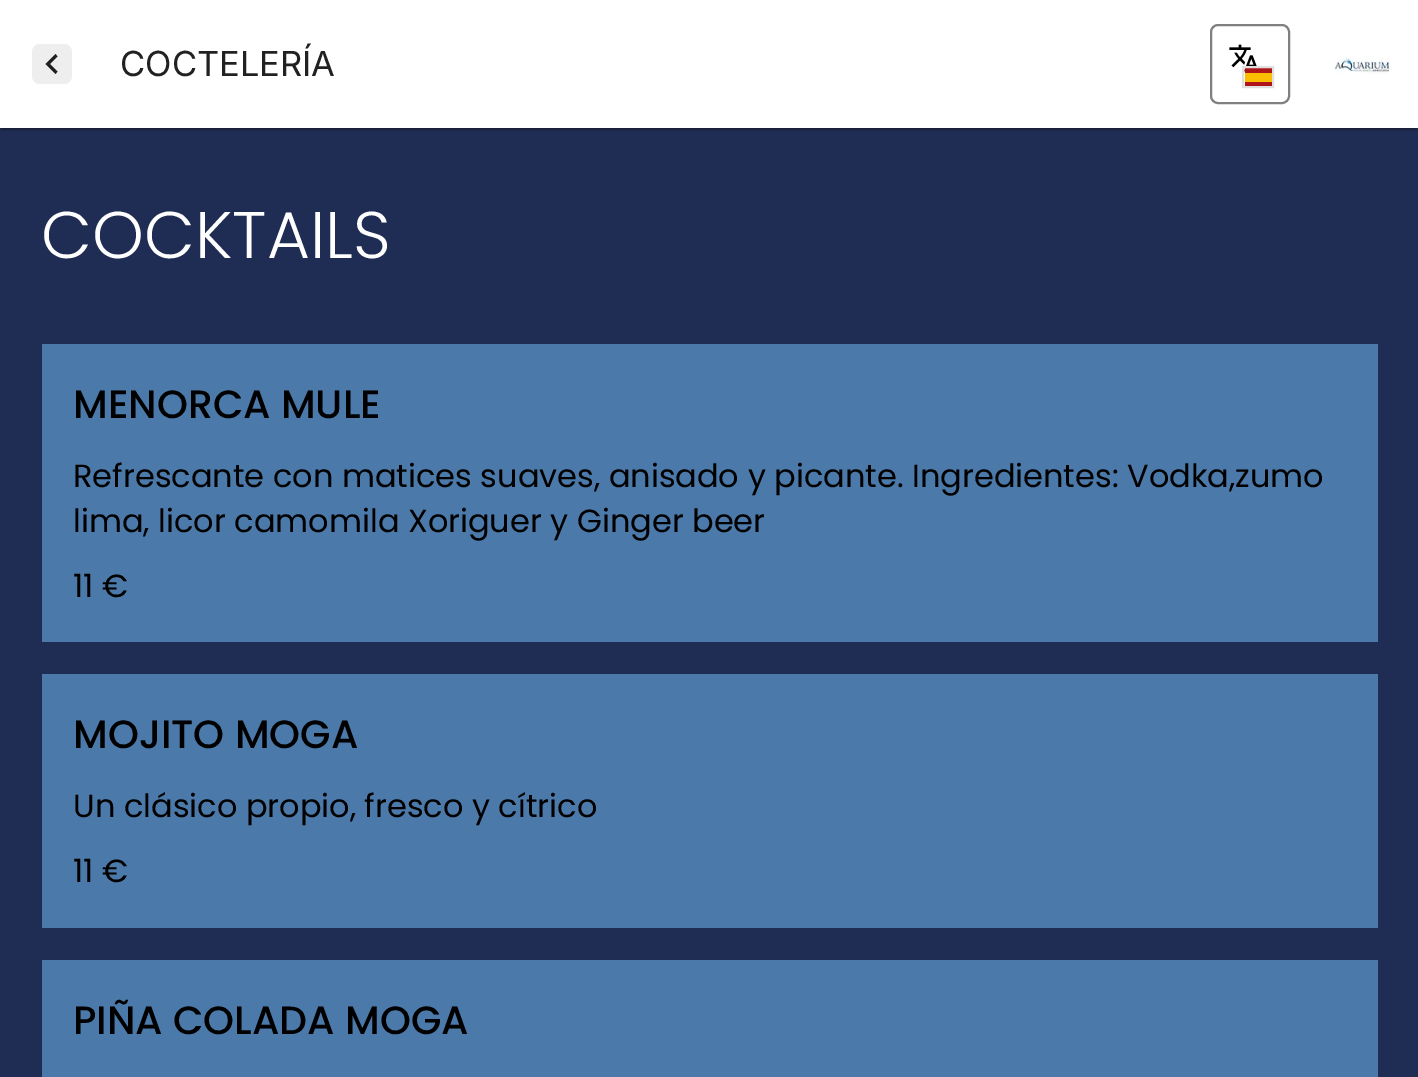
%!PS
<< /PageSize [1418 1077] /PageUsesTransparency true >> setpagedevice
/mt/moveto load def
/li/lineto load def
/cp/closepath load def
/fl/fill load def
/st/stroke load def
/lw/setlinewidth load def
/co { dup -16 bitshift 255 div exch dup -8 bitshift 255 and 255 div exch 255 and 255 div setrgbcolor } def
/fn { [ exch dup neg 0 0 3 -1 roll 0 0 ] selectfont } def
/tx { co fn moveto show } def
/bx { co rectfill } def
/al { dup .setfillconstantalpha .setstrokeconstantalpha } def
/rr { 5 dict begin { /r /h /w /y /x } { exch def } forall
  x r add y moveto x w add y 2 copy h add r arct x w add y h add x 1 index r arct
  x y h add x y r arct x y 2 copy exch w add exch r arct closepath end } def
/sh { 12 dict begin { /a /b /q /h /w /y /x } { exch def } forall gsave /was 0 def
  9 -2 -9 { dup b mul 4 div /e exch def 1 sub .425 mul 2.718 exch exp 1 add a .99 .min exch div /now exch def
    1 1 now sub 1 was sub div sub al /was now def
    w h .min e 2 mul add 0 gt { x e sub y e sub w e 2 mul add h e 2 mul add
      q e add b .6 mul add w h .min 2 div e add .min 0 .max rr fill } if } for grestore end } def
/im { 5 dict begin { /h /w /y /x /name } { exch def } forall
  gsave x y translate w h scale
  w h 8 [w 0 0 h 0 0] name (r) file false 3 colorimage grestore end } def
0 .pushpdf14devicefilter
0 1077 translate 1 -1 scale
4 setmiterlimit
0 0 1418 1077 16#1F2C53 bx
16#000000 co
0 2 1418 128 0 1 .14 sh
2 6 1414 124 0 1 .2 sh
0 0 1418 128 16#FFFFFF bx
16#EEEEEE co
32 44 40 40 8 rr fl
16#1F1F1F co
57.5 56.5 mt 55.5 54 li 45.5 64 li 55.5 74 li 57.5 71.5 li 50 64 li cp fl
16#808080 co
2 lw
1211 25 78 78 7 rr st
(media/1.raw) 1229 44 28 28 im
1245 68 27 18 16#AD1519 bx
1245 73 27 9 16#FABD00 bx
16#E0E0E0 co
1243 67 30 20 rectstroke
(media/2.raw) 1334 57 58 17 im
42 344 1336 298 16#4B79A9 bx
42 674 1336 254 16#4B79A9 bx
42 960 1336 117 16#4B79A9 bx
(COCTELERÍA) 120 76 /Inter-Regular 34.5 16#212121 tx
(COCKTAILS) 41 258 /Poppins-Light 66 16#FFFFFF tx
(MENORCA MULE) 73 418 /Poppins-Medium 39.4 16#000000 tx
(Refrescante con matices suaves, anisado y picante. Ingredientes: Vodka,zumo) 73 487 /Poppins-Regular 32 16#000000 tx
(lima, licor camomila Xoriguer y Ginger beer) 73 532 /Poppins-Regular 32 16#000000 tx
(11 €) 73 597 /Poppins-Regular 32 16#000000 tx
(MOJITO MOGA) 73 748 /Poppins-Medium 39.4 16#000000 tx
(Un clásico propio, fresco y cítrico) 73 817 /Poppins-Regular 32 16#000000 tx
(11 €) 73 882 /Poppins-Regular 32 16#000000 tx
(PIÑA COLADA MOGA) 73 1034 /Poppins-Medium 39.4 16#000000 tx
.poppdf14devicefilter showpage
